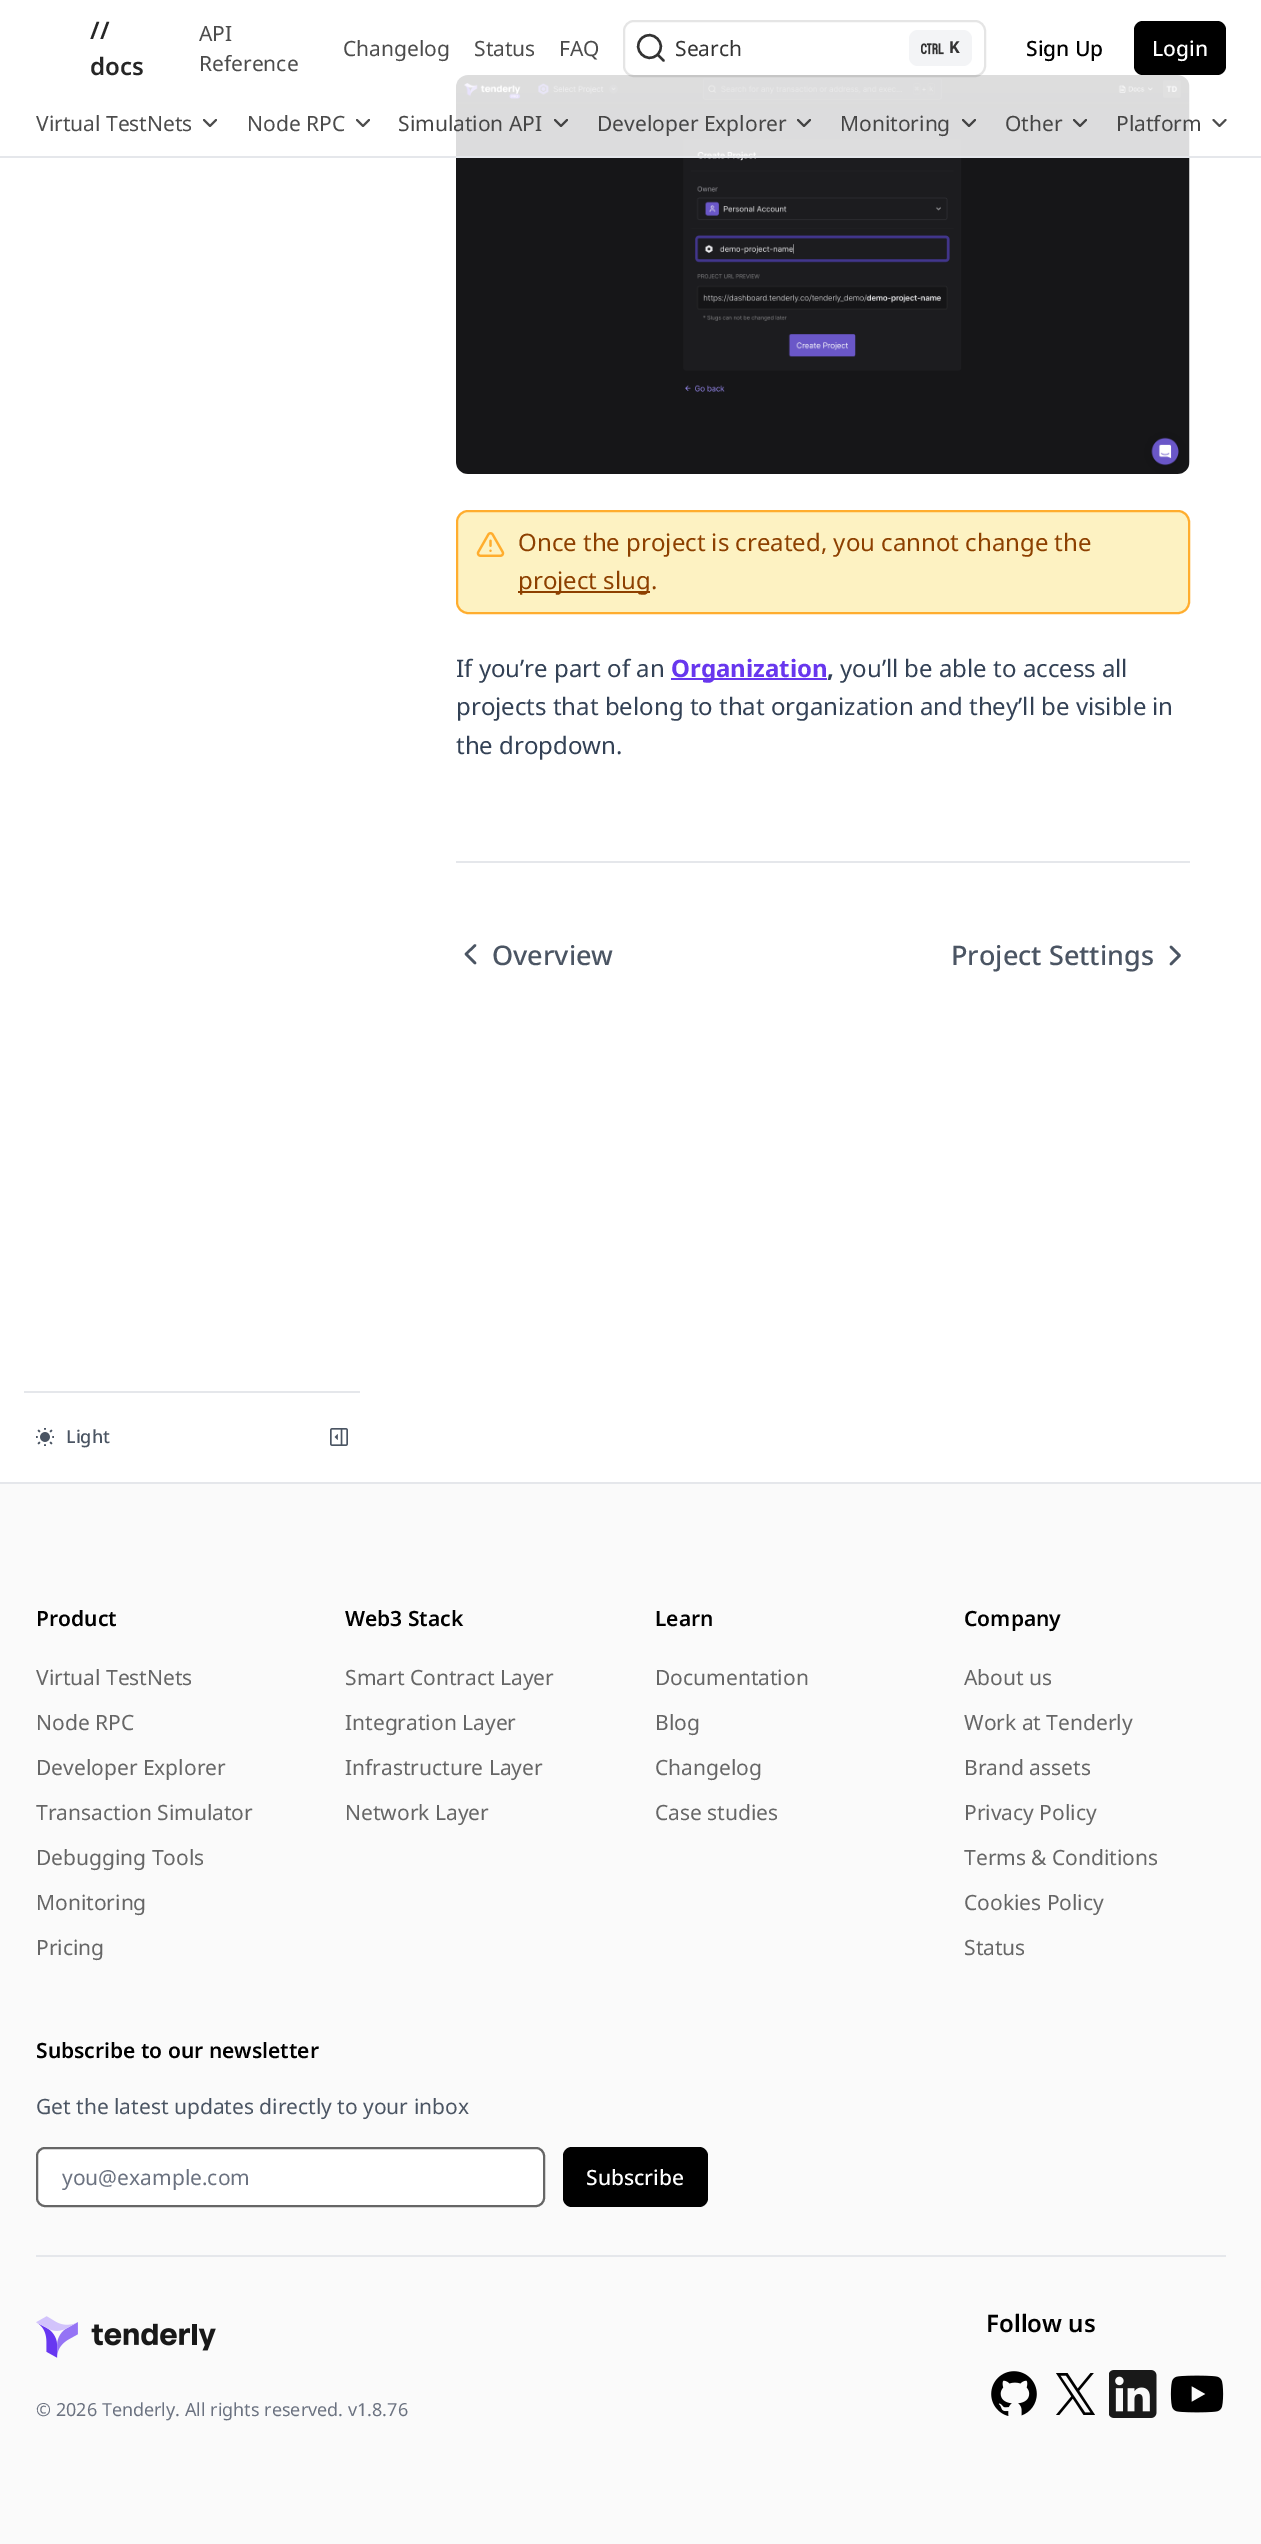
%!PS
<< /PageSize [1261 2544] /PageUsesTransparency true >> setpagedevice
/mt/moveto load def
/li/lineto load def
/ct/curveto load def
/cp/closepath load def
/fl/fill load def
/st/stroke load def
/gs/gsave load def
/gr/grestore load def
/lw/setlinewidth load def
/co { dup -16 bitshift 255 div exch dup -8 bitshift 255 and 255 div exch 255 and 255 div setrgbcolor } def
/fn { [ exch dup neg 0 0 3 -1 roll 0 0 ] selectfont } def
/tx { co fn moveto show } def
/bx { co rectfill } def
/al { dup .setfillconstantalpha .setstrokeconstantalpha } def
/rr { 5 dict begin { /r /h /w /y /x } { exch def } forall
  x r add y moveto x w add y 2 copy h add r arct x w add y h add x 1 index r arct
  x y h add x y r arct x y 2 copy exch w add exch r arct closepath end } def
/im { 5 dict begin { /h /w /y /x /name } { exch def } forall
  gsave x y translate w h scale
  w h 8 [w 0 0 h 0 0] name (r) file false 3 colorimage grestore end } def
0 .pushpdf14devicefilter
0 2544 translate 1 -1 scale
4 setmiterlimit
0 0 1261 2544 16#FFFFFF bx
(media/2.raw) 456 75 734 399 im
0 156 1261 2 16#E5E7EB bx
0.85 al
456 75 734 81 16#FFFFFF bx
0.1 al
16#000000 co
2 lw
624 21 361 55 10 rr st
1 al
16#333333 co
2.4 lw
1 setlinecap
1 setlinejoin
657.5 54.5 mt 663.5 60.5 li 657.5 54.5 li 647 65 631 49 641.5 38.5 ct 652 28 668 44 657.5 54.5 ct cp st
16#F3F4F6 co
909 30 63 36 9 rr fl
(media/1.raw) 921 43 23 12 im
16#000000 co
1134 21 92 54 9 rr fl
16#4C4C4C co
2 lw
204 120 mt 210 126 li 216 120 li st
357 120 mt 363 126 li 369 120 li st
16#424242 co
555 120 mt 561 126 li 567 120 li st
798 120 mt 804 126 li 810 120 li st
963 120 mt 969 126 li 975 120 li st
1074 120 mt 1080 126 li 1086 120 li st
16#4C4C4C co
1213.5 120 mt 1219.5 126 li 1225.5 120 li st
16#FDF2C2 co
457 511 732 102 11 rr gs fl gr
16#FFAD2E co
0 setlinecap
0 setlinejoin
st
(media/3.raw) 476 532 29 25 im
518 591 132 2 16#8D4000 bx
671 678 156 2 16#6837EE bx
456 861 734 2 16#E5E7EB bx
16#4B5563 co
2.5 lw
1 setlinecap
1 setlinejoin
475 963 mt 466 954 li 475 945.5 li st
1171 947 mt 1179.5 955.5 li 1171 964 li st
24 1391 336 2 16#E5E7EB bx
(media/4.raw) 36 1428 18 18 im
(media/5.raw) 330 1428 18 18 im
0 1484 1261 1060 16#FAFAFA bx
0 1482 1261 2 16#E5E7EB bx
16#FFFFFF co
37 2148 507 58 8 rr gs fl gr
16#666666 co
2 lw
0 setlinecap
0 setlinejoin
st
16#000000 co
563 2147 145 60 9 rr fl
36 2255 1190 2 16#E5E7EB bx
(media/6.raw) 991 2371 46 45 im
(media/7.raw) 1056 2373 39 42 im
(media/8.raw) 1109 2370 48 48 im
(media/9.raw) 1170 2375 54 38 im
(media/10.raw) 36 2316 180 42 im
(//) 90 39 /NotoSans-SemiBold 24 16#262626 tx
(docs) 90 75 /NotoSans-SemiBold 24 16#262626 tx
(API) 199 41 /NotoSans-Regular 21 16#4C4C4C tx
(Reference) 199 71 /NotoSans-Regular 21 16#4C4C4C tx
(Changelog) 343 56 /NotoSans-Regular 21 16#4C4C4C tx
(Status) 474 56 /NotoSans-Regular 21 16#4C4C4C tx
(FAQ) 559 56 /NotoSans-Regular 21 16#4C4C4C tx
(Search) 675 56 /NotoSans-Regular 21 16#333333 tx
(K) 949 53 /LiberationMono-Bold 18 16#333333 tx
(Sign Up) 1026 56 /NotoSans-Medium 21 16#000000 tx
(Login) 1152 56 /NotoSans-Medium 21 16#FFFFFF tx
(Virtual TestNets) 36 131 /NotoSans-Regular 21 16#4C4C4C tx
(Node RPC) 247 131 /NotoSans-Regular 21 16#4C4C4C tx
(Simulation API) 398 131 /NotoSans-Regular 21 16#464646 tx
(Developer Explorer) 597 131 /NotoSans-Regular 21 16#464646 tx
(Monitoring) 840 131 /NotoSans-Regular 21 16#464646 tx
(Other) 1005 131 /NotoSans-Regular 21 16#464646 tx
(Platform) 1116 131 /NotoSans-Regular 21 16#464646 tx
(Once the project is created, you cannot change the) 518 551 /NotoSans-Regular 24 16#8D4000 tx
(project slug.) 518 589 /NotoSans-Regular 24 16#8D4000 tx
(If you’re part of an) 456 677 /NotoSans-Regular 24 16#334155 tx
(Organization) 671 677 /NotoSans-Bold 24 16#6837EE tx
(,) 827 677 /NotoSans-Bold 24 16#334155 tx
(you’ll be able to access all) 840 677 /NotoSans-Regular 24 16#334155 tx
(projects that belong to that organization and they’ll be visible in) 456 715 /NotoSans-Regular 24 16#334155 tx
(the dropdown.) 456 754 /NotoSans-Regular 24 16#334155 tx
(Overview) 492 965 /NotoSans-Medium 27 16#4B5563 tx
(Project Settings) 951 965 /NotoSans-Medium 27 16#4B5563 tx
(Light) 66 1443 /NotoSans-Medium 18 16#4B5563 tx
(Product) 36 1626 /NotoSans-SemiBold 21 16#000000 tx
(Virtual TestNets) 36 1685 /NotoSans-Regular 21 16#666666 tx
(Node RPC) 36 1730 /NotoSans-Regular 21 16#666666 tx
(Developer Explorer) 36 1775 /NotoSans-Regular 21 16#666666 tx
(Transaction Simulator) 36 1820 /NotoSans-Regular 21 16#666666 tx
(Debugging Tools) 36 1865 /NotoSans-Regular 21 16#666666 tx
(Monitoring) 36 1910 /NotoSans-Regular 21 16#666666 tx
(Pricing) 36 1955 /NotoSans-Regular 21 16#666666 tx
(Web3 Stack) 345 1626 /NotoSans-SemiBold 21 16#000000 tx
(Smart Contract Layer) 345 1685 /NotoSans-Regular 21 16#666666 tx
(Integration Layer) 345 1730 /NotoSans-Regular 21 16#666666 tx
(Infrastructure Layer) 345 1775 /NotoSans-Regular 21 16#666666 tx
(Network Layer) 345 1820 /NotoSans-Regular 21 16#666666 tx
(Learn) 655 1626 /NotoSans-SemiBold 21 16#000000 tx
(Documentation) 655 1685 /NotoSans-Regular 21 16#666666 tx
(Blog) 655 1730 /NotoSans-Regular 21 16#666666 tx
(Changelog) 655 1775 /NotoSans-Regular 21 16#666666 tx
(Case studies) 655 1820 /NotoSans-Regular 21 16#666666 tx
(Company) 964 1626 /NotoSans-SemiBold 21 16#000000 tx
(About us) 964 1685 /NotoSans-Regular 21 16#666666 tx
(Work at Tenderly) 964 1730 /NotoSans-Regular 21 16#666666 tx
(Brand assets) 964 1775 /NotoSans-Regular 21 16#666666 tx
(Privacy Policy) 964 1820 /NotoSans-Regular 21 16#666666 tx
(Terms & Conditions) 964 1865 /NotoSans-Regular 21 16#666666 tx
(Cookies Policy) 964 1910 /NotoSans-Regular 21 16#666666 tx
(Status) 964 1955 /NotoSans-Regular 21 16#666666 tx
(Subscribe to our newsletter) 36 2058 /NotoSans-SemiBold 21 16#000000 tx
(Get the latest updates directly to your inbox) 36 2114 /NotoSans-Regular 21 16#4B5563 tx
gs
62 2162 457 28 rectclip
(you@example.com) 62 2185 /NotoSans-Regular 21 16#6B7280 tx
gr
(Subscribe) 586 2185 /NotoSans-Medium 21 16#FFFFFF tx
(Follow us) 986 2332 /NotoSans-SemiBold 24 16#000000 tx
(© 2026 Tenderly. All rights reserved. v1.8.76) 36 2416 /NotoSans-Regular 18 16#6B7280 tx
.poppdf14devicefilter showpage
